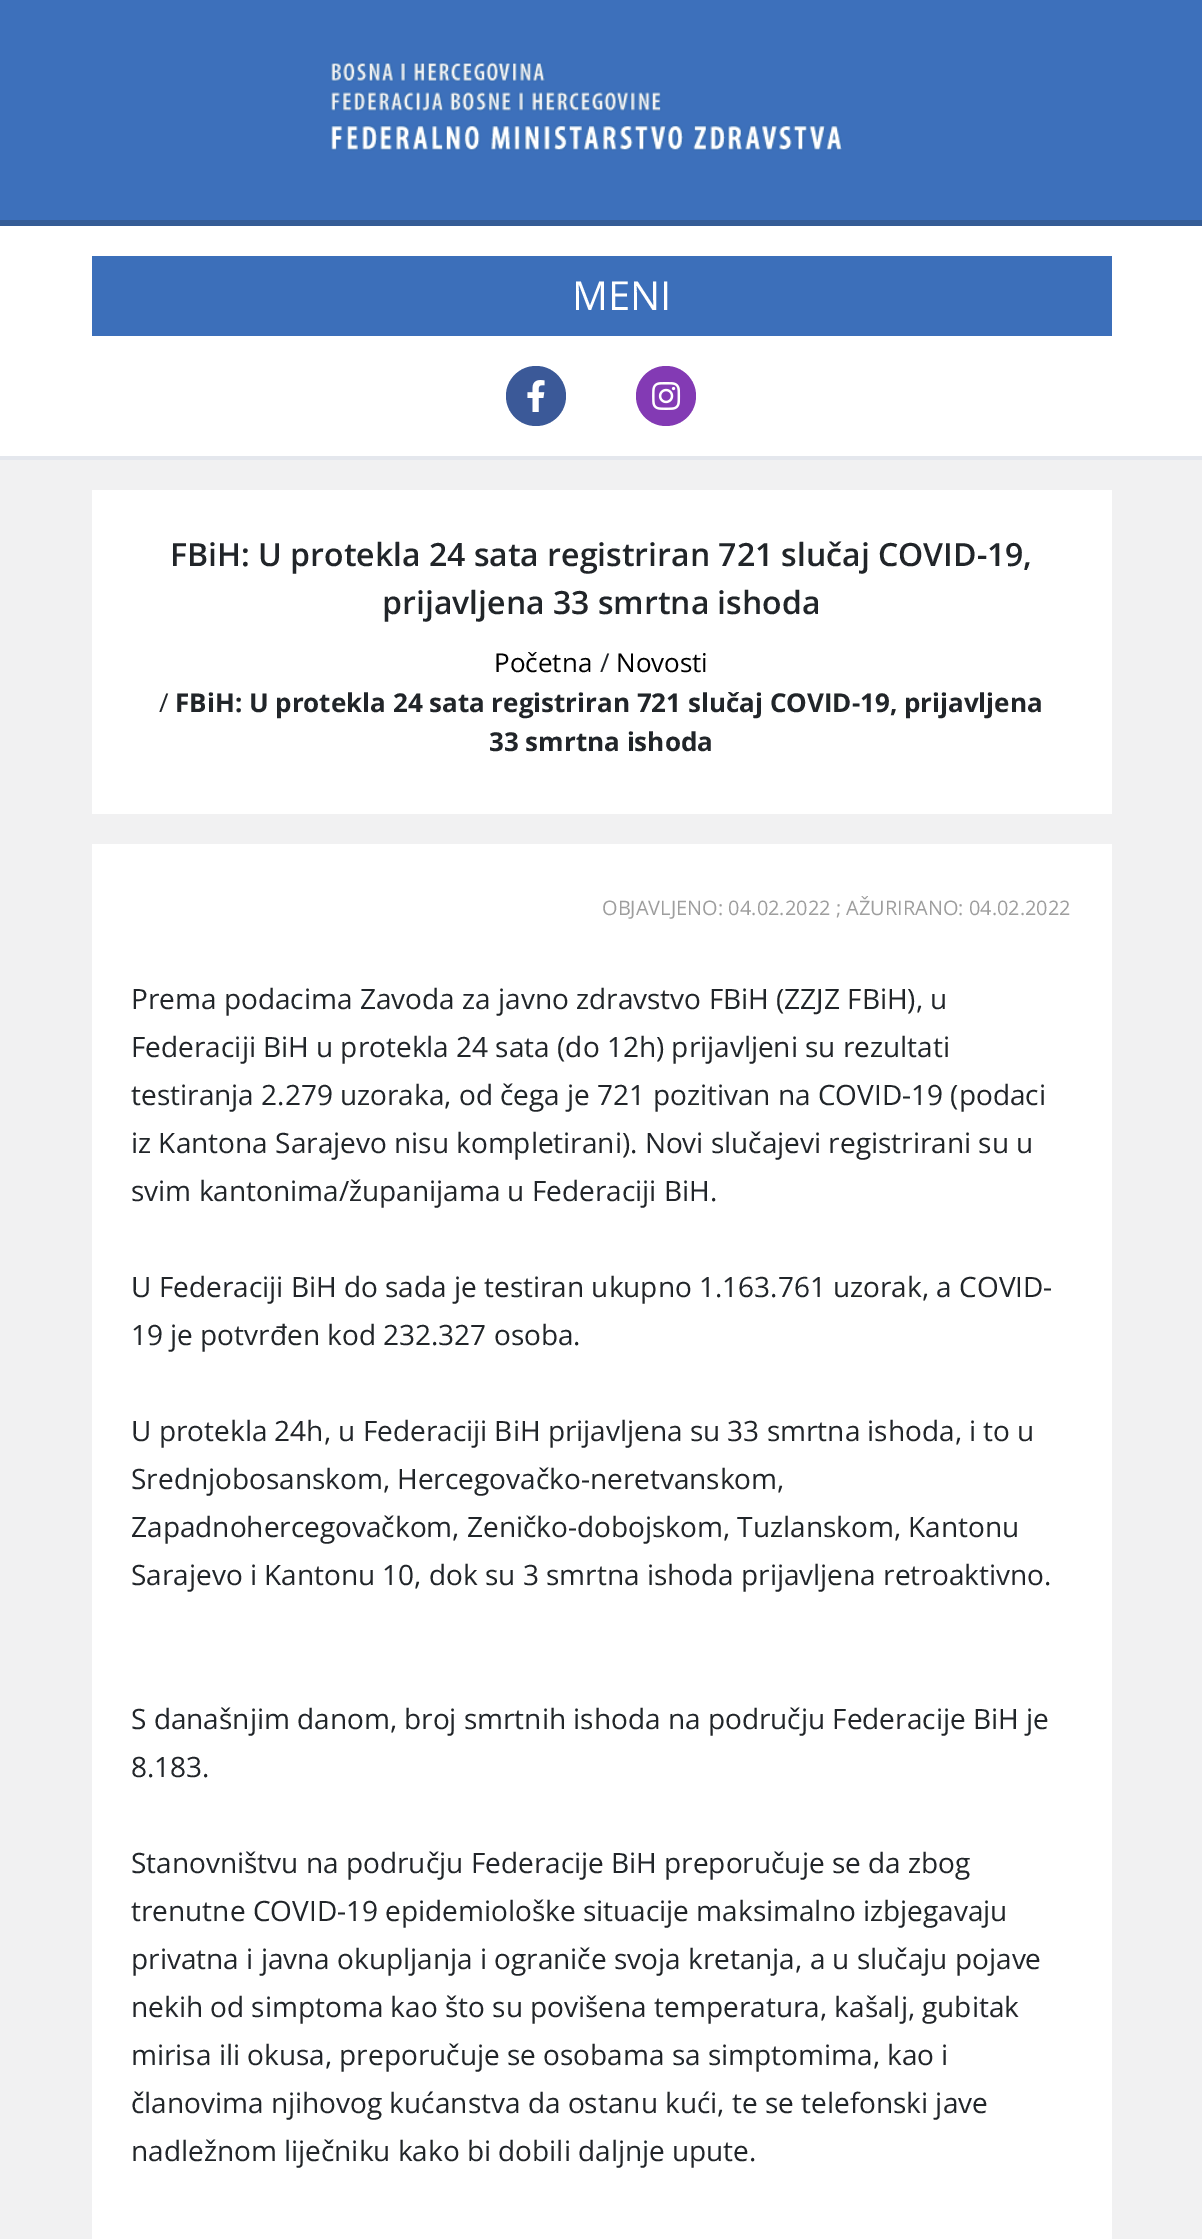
%!PS
<< /PageSize [1202 2239] >> setpagedevice
/fl/fill load def
/co { dup -16 bitshift 255 div exch dup -8 bitshift 255 and 255 div exch 255 and 255 div setrgbcolor } def
/fn { [ exch dup neg 0 0 3 -1 roll 0 0 ] selectfont } def
/tx { co fn moveto show } def
/bx { co rectfill } def
/ci { newpath 0 360 arc closepath } def
/im { 5 dict begin { /h /w /y /x /name } { exch def } forall
  gsave x y translate w h scale
  w h 8 [w 0 0 h 0 0] name (r) file false 3 colorimage grestore end } def
0 2239 translate 1 -1 scale
4 setmiterlimit
0 0 1202 2239 16#F1F1F2 bx
0 0 1202 220 16#3D70BB bx
0 220 1202 6 16#345C96 bx
(media/1.raw) 330 62 512 89 im
0 226 1202 230 16#FFFFFF bx
0 456 1202 4 16#E4E7ED bx
92 256 1020 80 16#3C6FBA bx
16#3B5998 co
536 396 30 ci fl
(media/2.raw) 527 380 18 32 im
16#833AB4 co
666 396 30 ci fl
(media/3.raw) 652 382 29 28 im
92 490 1020 324 16#FFFFFF bx
92 844 1020 1395 16#FFFFFF bx
(MENI) 572 310 /OpenSans-Regular 40 16#FFFFFF tx
(FBiH: U protekla 24 sata registriran 721 slučaj COVID-19,) 170 566 /OpenSans-SemiBold 32 16#212529 tx
(prijavljena 33 smrtna ishoda) 382 614 /OpenSans-SemiBold 32 16#212529 tx
(Početna) 494 672 /OpenSans-Regular 26 16#000000 tx
(/) 600 672 /OpenSans-Regular 26 16#212529 tx
(Novosti) 616 672 /OpenSans-Regular 26 16#000000 tx
(/) 159 712 /OpenSans-Regular 26 16#212529 tx
(FBiH: U protekla 24 sata registriran 721 slučaj COVID-19, prijavljena) 175 712 /OpenSans-Bold 26 16#212529 tx
(33 smrtna ishoda) 489 751 /OpenSans-Bold 26 16#212529 tx
(OBJAVLJENO: 04.02.2022 ; AŽURIRANO: 04.02.2022) 602 915 /OpenSans-Regular 20 16#9E9E9E tx
(Prema podacima Zavoda za javno zdravstvo FBiH \(ZZJZ FBiH\), u) 131 1009 /OpenSans-Regular 28 16#212529 tx
(Federaciji BiH u protekla 24 sata \(do 12h\) prijavljeni su rezultati) 131 1057 /OpenSans-Regular 28 16#212529 tx
(testiranja 2.279 uzoraka, od čega je 721 pozitivan na COVID-19 \(podaci) 131 1105 /OpenSans-Regular 28 16#212529 tx
(iz Kantona Sarajevo nisu kompletirani\). Novi slučajevi registrirani su u) 131 1153 /OpenSans-Regular 28 16#212529 tx
(svim kantonima/županijama u Federaciji BiH.) 131 1201 /OpenSans-Regular 28 16#212529 tx
(U Federaciji BiH do sada je testiran ukupno 1.163.761 uzorak, a COVID-) 131 1297 /OpenSans-Regular 28 16#212529 tx
(19 je potvrđen kod 232.327 osoba.) 131 1345 /OpenSans-Regular 28 16#212529 tx
(U protekla 24h, u Federaciji BiH prijavljena su 33 smrtna ishoda, i to u) 131 1441 /OpenSans-Regular 28 16#212529 tx
(Srednjobosanskom, Hercegovačko-neretvanskom,) 131 1489 /OpenSans-Regular 28 16#212529 tx
(Zapadnohercegovačkom, Zeničko-dobojskom, Tuzlanskom, Kantonu) 131 1537 /OpenSans-Regular 28 16#212529 tx
(Sarajevo i Kantonu 10, dok su 3 smrtna ishoda prijavljena retroaktivno.) 131 1585 /OpenSans-Regular 28 16#212529 tx
(S današnjim danom, broj smrtnih ishoda na području Federacije BiH je) 131 1729 /OpenSans-Regular 28 16#212529 tx
(8.183.) 131 1777 /OpenSans-Regular 28 16#212529 tx
(Stanovništvu na području Federacije BiH preporučuje se da zbog) 131 1873 /OpenSans-Regular 28 16#212529 tx
(trenutne COVID-19 epidemiološke situacije maksimalno izbjegavaju) 131 1921 /OpenSans-Regular 28 16#212529 tx
(privatna i javna okupljanja i ograniče svoja kretanja, a u slučaju pojave) 131 1969 /OpenSans-Regular 28 16#212529 tx
(nekih od simptoma kao što su povišena temperatura, kašalj, gubitak) 131 2017 /OpenSans-Regular 28 16#212529 tx
(mirisa ili okusa, preporučuje se osobama sa simptomima, kao i) 131 2065 /OpenSans-Regular 28 16#212529 tx
(članovima njihovog kućanstva da ostanu kući, te se telefonski jave) 131 2113 /OpenSans-Regular 28 16#212529 tx
(nadležnom liječniku kako bi dobili daljnje upute.) 131 2161 /OpenSans-Regular 28 16#212529 tx
showpage
